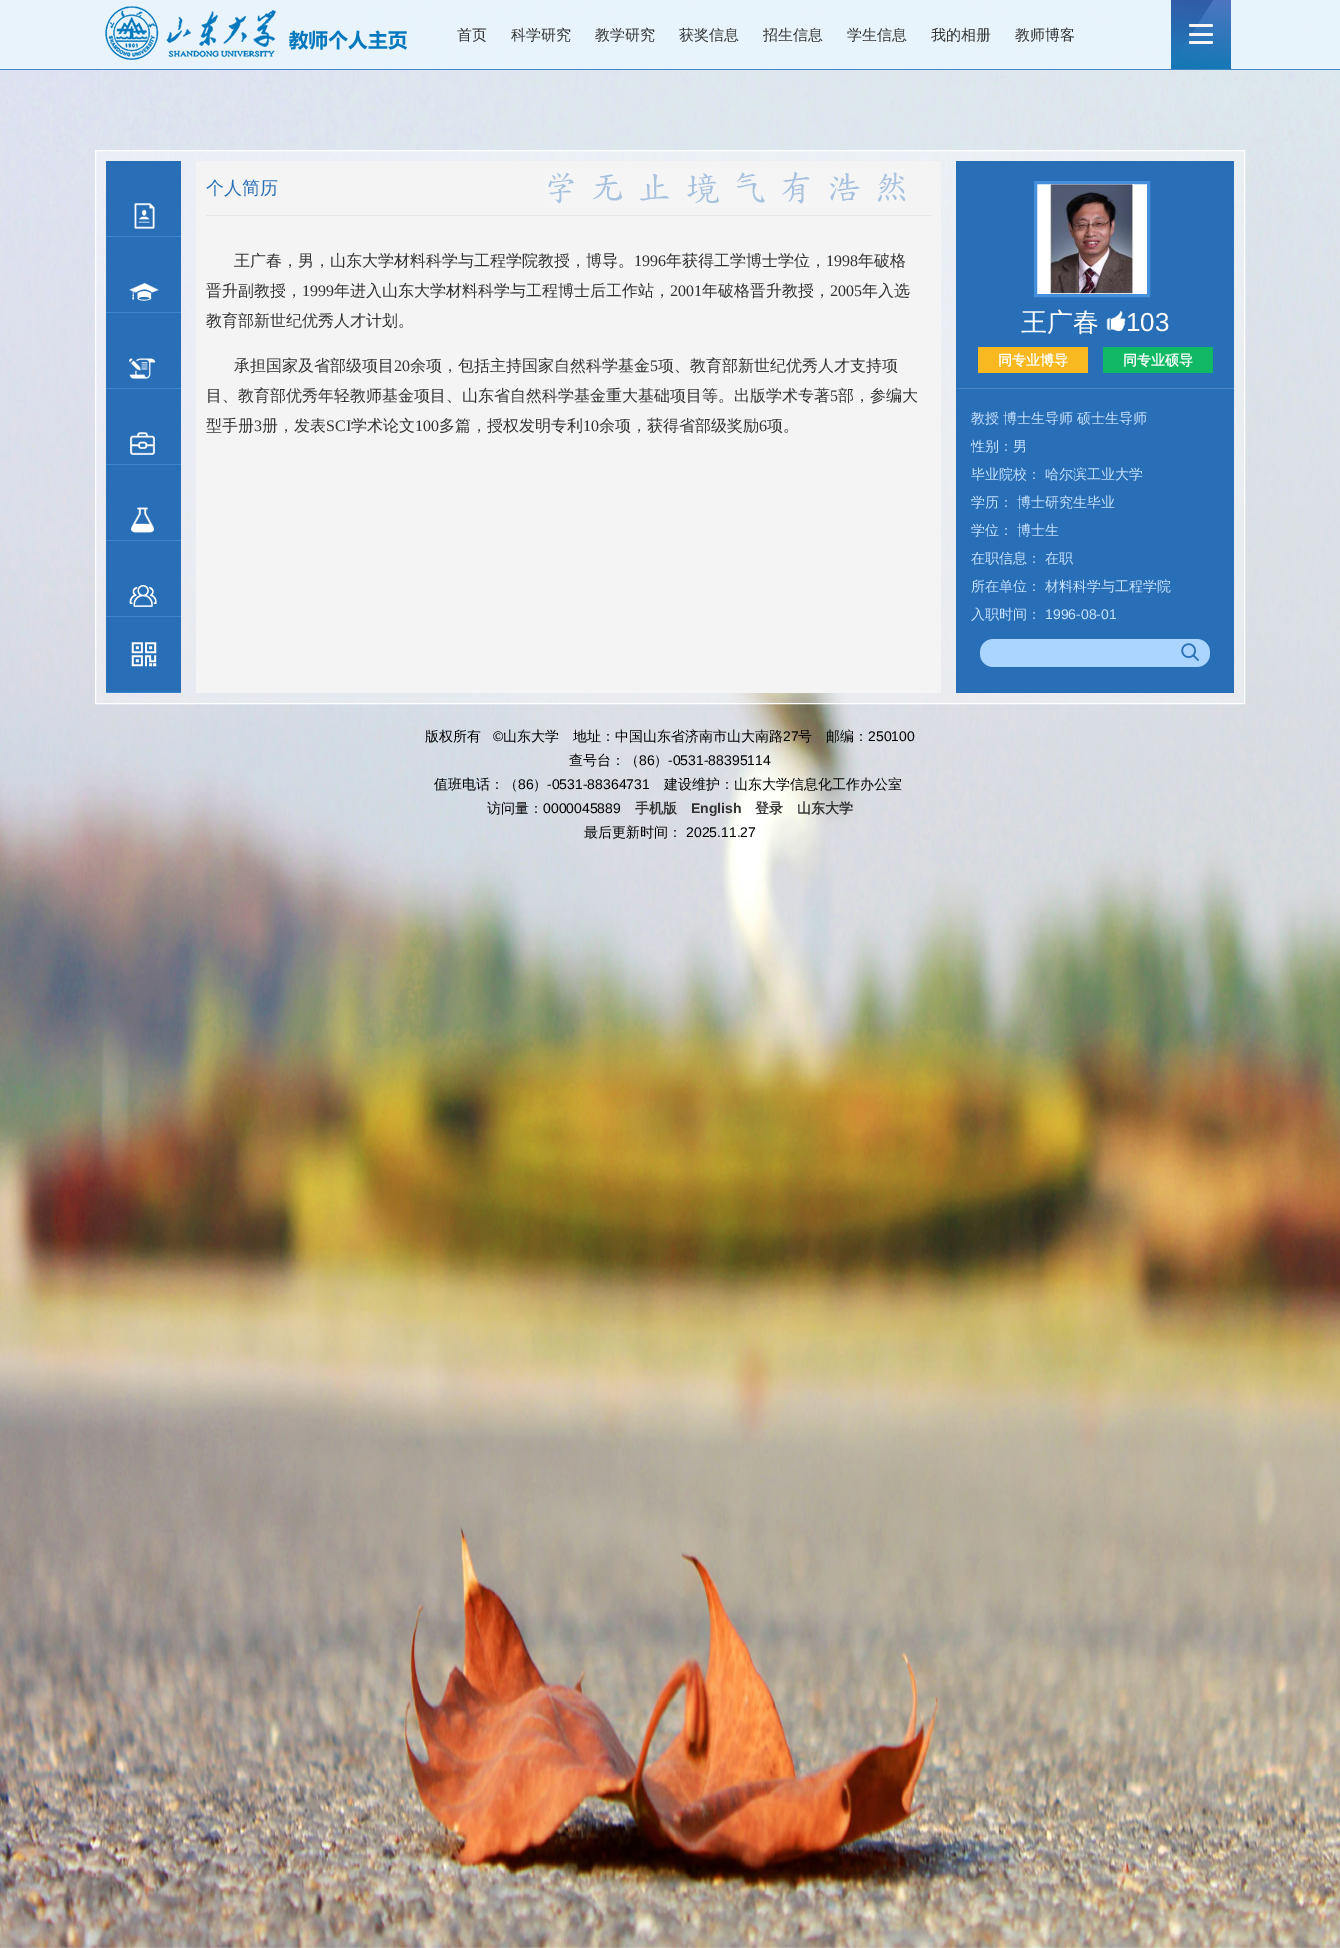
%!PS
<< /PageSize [1340 1948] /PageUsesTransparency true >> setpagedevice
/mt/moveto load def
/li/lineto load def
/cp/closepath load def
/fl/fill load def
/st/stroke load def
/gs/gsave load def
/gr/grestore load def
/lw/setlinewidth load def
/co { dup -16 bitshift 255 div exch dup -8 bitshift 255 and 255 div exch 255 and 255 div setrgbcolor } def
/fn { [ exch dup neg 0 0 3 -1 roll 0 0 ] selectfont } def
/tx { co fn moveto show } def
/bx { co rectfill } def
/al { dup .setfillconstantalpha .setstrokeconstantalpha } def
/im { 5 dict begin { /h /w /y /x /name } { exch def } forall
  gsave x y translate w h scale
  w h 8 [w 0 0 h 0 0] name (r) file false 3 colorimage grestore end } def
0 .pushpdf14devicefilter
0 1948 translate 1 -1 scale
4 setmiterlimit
0 0 1340 1948 16#FFFFFF bx
(media/1.raw) 0 0 1340 1948 im
0.9 al
0 0 1340 69 16#E9F5FD bx
1 al
0 69 1340 1 16#4786C5 bx
(media/2.raw) 105 6 302 54 im
(media/3.raw) 1171 0 60 69 im
(media/4.raw) 1189 24 24 20 im
0.4 al
16#FFFFFF co
95.5 150.5 mt 1244.5 150.5 li 1244.5 703.5 li 95.5 703.5 li cp fl
1 al
95.5 150.5 mt 1244.5 150.5 li 1244.5 703.5 li 95.5 703.5 li cp st
106 161 75 531 16#286FB7 bx
106 236 75 1 16#3A86D3 bx
(media/5.raw) 134 203 21 26 im
106 312 75 1 16#3A86D3 bx
(media/6.raw) 129 283 30 18 im
106 388 75 1 16#3A86D3 bx
(media/7.raw) 129 358 27 21 im
106 464 75 1 16#3A86D3 bx
(media/8.raw) 130 432 25 23 im
106 540 75 1 16#3A86D3 bx
(media/9.raw) 131 507 23 26 im
106 616 75 1 16#3A86D3 bx
(media/10.raw) 129 585 28 22 im
106 692 75 1 16#3A86D3 bx
(media/11.raw) 131 642 26 25 im
196 161 745 532 16#F4F4F4 bx
(media/12.raw) 545 169 360 39 im
206 215 725 1 16#E6E6E6 bx
956 161 278 532 16#286FB7 bx
956 388 278 1 16#4885C5 bx
16#FFFFFF co
1035.5 182.5 mt 1148.5 182.5 li 1148.5 295.5 li 1035.5 295.5 li cp gs fl gr
16#4490DC co
3 lw
st
(media/13.raw) 1050 184 84 110 im
(media/14.raw) 1106 311 20 20 im
978 347 110 26 16#F8B820 bx
1103 347 110 26 16#11B964 bx
(media/15.raw) 980 639 230 28 im
(media/16.raw) 1181 643 18 18 im
(首页) 457 40 /WenQuanYiZenHei-Medium 15 16#333333 tx
(科学研究) 511 40 /WenQuanYiZenHei-Medium 15 16#333333 tx
(教学研究) 595 40 /WenQuanYiZenHei-Medium 15 16#333333 tx
(获奖信息) 679 40 /WenQuanYiZenHei-Medium 15 16#333333 tx
(招生信息) 763 40 /WenQuanYiZenHei-Medium 15 16#333333 tx
(学生信息) 847 40 /WenQuanYiZenHei-Medium 15 16#333333 tx
(我的相册) 931 40 /WenQuanYiZenHei-Medium 15 16#333333 tx
(教师博客) 1015 40 /WenQuanYiZenHei-Medium 15 16#333333 tx
(个人简历) 206 194 /WenQuanYiZenHei-Medium 18 16#286FB7 tx
(王广春，男，山东大学材料科学与工程学院教授，博导。) 234 266 /WenQuanYiZenHei-Medium 16 16#333333 tx
(1996) 634 266 /LiberationSerif-Regular 16 16#333333 tx
(年获得工学博士学位，) 666 266 /WenQuanYiZenHei-Medium 16 16#333333 tx
(1998) 826 266 /LiberationSerif-Regular 16 16#333333 tx
(年破格) 858 266 /WenQuanYiZenHei-Medium 16 16#333333 tx
(晋升副教授，) 206 296 /WenQuanYiZenHei-Medium 16 16#333333 tx
(1999) 302 296 /LiberationSerif-Regular 16 16#333333 tx
(年进入山东大学材料科学与工程博士后工作站，) 334 296 /WenQuanYiZenHei-Medium 16 16#333333 tx
(2001) 670 296 /LiberationSerif-Regular 16 16#333333 tx
(年破格晋升教授，) 702 296 /WenQuanYiZenHei-Medium 16 16#333333 tx
(2005) 830 296 /LiberationSerif-Regular 16 16#333333 tx
(年入选) 862 296 /WenQuanYiZenHei-Medium 16 16#333333 tx
(教育部新世纪优秀人才计划。) 206 326 /WenQuanYiZenHei-Medium 16 16#333333 tx
(承担国家及省部级项目) 234 371 /WenQuanYiZenHei-Medium 16 16#333333 tx
(20) 394 371 /LiberationSerif-Regular 16 16#333333 tx
(余项，包括主持国家自然科学基金) 410 371 /WenQuanYiZenHei-Medium 16 16#333333 tx
(5) 650 371 /LiberationSerif-Regular 16 16#333333 tx
(项、教育部新世纪优秀人才支持项) 658 371 /WenQuanYiZenHei-Medium 16 16#333333 tx
(目、教育部优秀年轻教师基金项目、山东省自然科学基金重大基础项目等。出版学术专著) 206 401 /WenQuanYiZenHei-Medium 16 16#333333 tx
(5) 830 401 /LiberationSerif-Regular 16 16#333333 tx
(部，参编大) 838 401 /WenQuanYiZenHei-Medium 16 16#333333 tx
(型手册) 206 431 /WenQuanYiZenHei-Medium 16 16#333333 tx
(3) 254 431 /LiberationSerif-Regular 16 16#333333 tx
(册，发表) 262 431 /WenQuanYiZenHei-Medium 16 16#333333 tx
(SCI) 326 431 /LiberationSerif-Regular 16 16#333333 tx
(学术论文) 351 431 /WenQuanYiZenHei-Medium 16 16#333333 tx
(100) 415 431 /LiberationSerif-Regular 16 16#333333 tx
(多篇，授权发明专利) 439 431 /WenQuanYiZenHei-Medium 16 16#333333 tx
(10) 583 431 /LiberationSerif-Regular 16 16#333333 tx
(余项，获得省部级奖励) 599 431 /WenQuanYiZenHei-Medium 16 16#333333 tx
(6) 759 431 /LiberationSerif-Regular 16 16#333333 tx
(项。) 767 431 /WenQuanYiZenHei-Medium 16 16#333333 tx
(王广春) 1021 331 /WenQuanYiZenHei-Medium 26 16#FFFFFF tx
(103) 1126 331 /LiberationSans-Regular 26 16#FFFFFF tx
(同专业博导) 998 365 /WenQuanYiZenHei-Bold 14 16#FFFFFF tx
(同专业硕导) 1123 365 /WenQuanYiZenHei-Bold 14 16#FFFFFF tx
(教授) 971 423 /WenQuanYiZenHei-Medium 14 16#C8E3FF tx
(博士生导师) 1003 423 /WenQuanYiZenHei-Medium 14 16#C8E3FF tx
(硕士生导师) 1077 423 /WenQuanYiZenHei-Medium 14 16#C8E3FF tx
(性别：男) 971 451 /WenQuanYiZenHei-Medium 14 16#C8E3FF tx
(毕业院校： 哈尔滨工业大学) 971 479 /WenQuanYiZenHei-Medium 14 16#C8E3FF tx
(学历： 博士研究生毕业) 971 507 /WenQuanYiZenHei-Medium 14 16#C8E3FF tx
(学位： 博士生) 971 535 /WenQuanYiZenHei-Medium 14 16#C8E3FF tx
(在职信息： 在职) 971 563 /WenQuanYiZenHei-Medium 14 16#C8E3FF tx
(所在单位： 材料科学与工程学院) 971 591 /WenQuanYiZenHei-Medium 14 16#C8E3FF tx
(入职时间：) 971 619 /WenQuanYiZenHei-Medium 14 16#C8E3FF tx
(1996-08-01) 1045 619 /LiberationSans-Regular 14 16#C8E3FF tx
(版权所有) 425 741 /WenQuanYiZenHei-Medium 14 16#000000 tx
(©) 493 741 /LiberationSans-Regular 14 16#000000 tx
(山东大学　地址：中国山东省济南市山大南路) 503 741 /WenQuanYiZenHei-Medium 14 16#000000 tx
(27) 783 741 /LiberationSans-Regular 14 16#000000 tx
(号　邮编：) 798 741 /WenQuanYiZenHei-Medium 14 16#000000 tx
(250100) 868 741 /LiberationSans-Regular 14 16#000000 tx
(查号台：（) 569 765 /WenQuanYiZenHei-Medium 14 16#000000 tx
(86) 639 765 /LiberationSans-Regular 14 16#000000 tx
(）) 654 765 /WenQuanYiZenHei-Medium 14 16#000000 tx
(-0531-88395114) 668 765 /LiberationSans-Regular 14 16#000000 tx
(值班电话：（) 434 789 /WenQuanYiZenHei-Medium 14 16#000000 tx
(86) 518 789 /LiberationSans-Regular 14 16#000000 tx
(）) 533 789 /WenQuanYiZenHei-Medium 14 16#000000 tx
(-0531-88364731) 547 789 /LiberationSans-Regular 14 16#000000 tx
(建设维护：山东大学信息化工作办公室) 664 789 /WenQuanYiZenHei-Medium 14 16#000000 tx
(访问量：) 487 813 /WenQuanYiZenHei-Medium 14 16#000000 tx
(0000045889) 543 813 /LiberationSans-Regular 14 16#000000 tx
(手机版) 635 813 /WenQuanYiZenHei-Bold 14 16#333333 tx
(English) 691 813 /LiberationSans-Bold 14 16#333333 tx
(登录) 755 813 /WenQuanYiZenHei-Bold 14 16#333333 tx
(山东大学) 797 813 /WenQuanYiZenHei-Bold 14 16#333333 tx
(最后更新时间：) 584 837 /WenQuanYiZenHei-Medium 14 16#000000 tx
(2025.11.27) 686 837 /LiberationSans-Regular 14 16#000000 tx
.poppdf14devicefilter showpage
